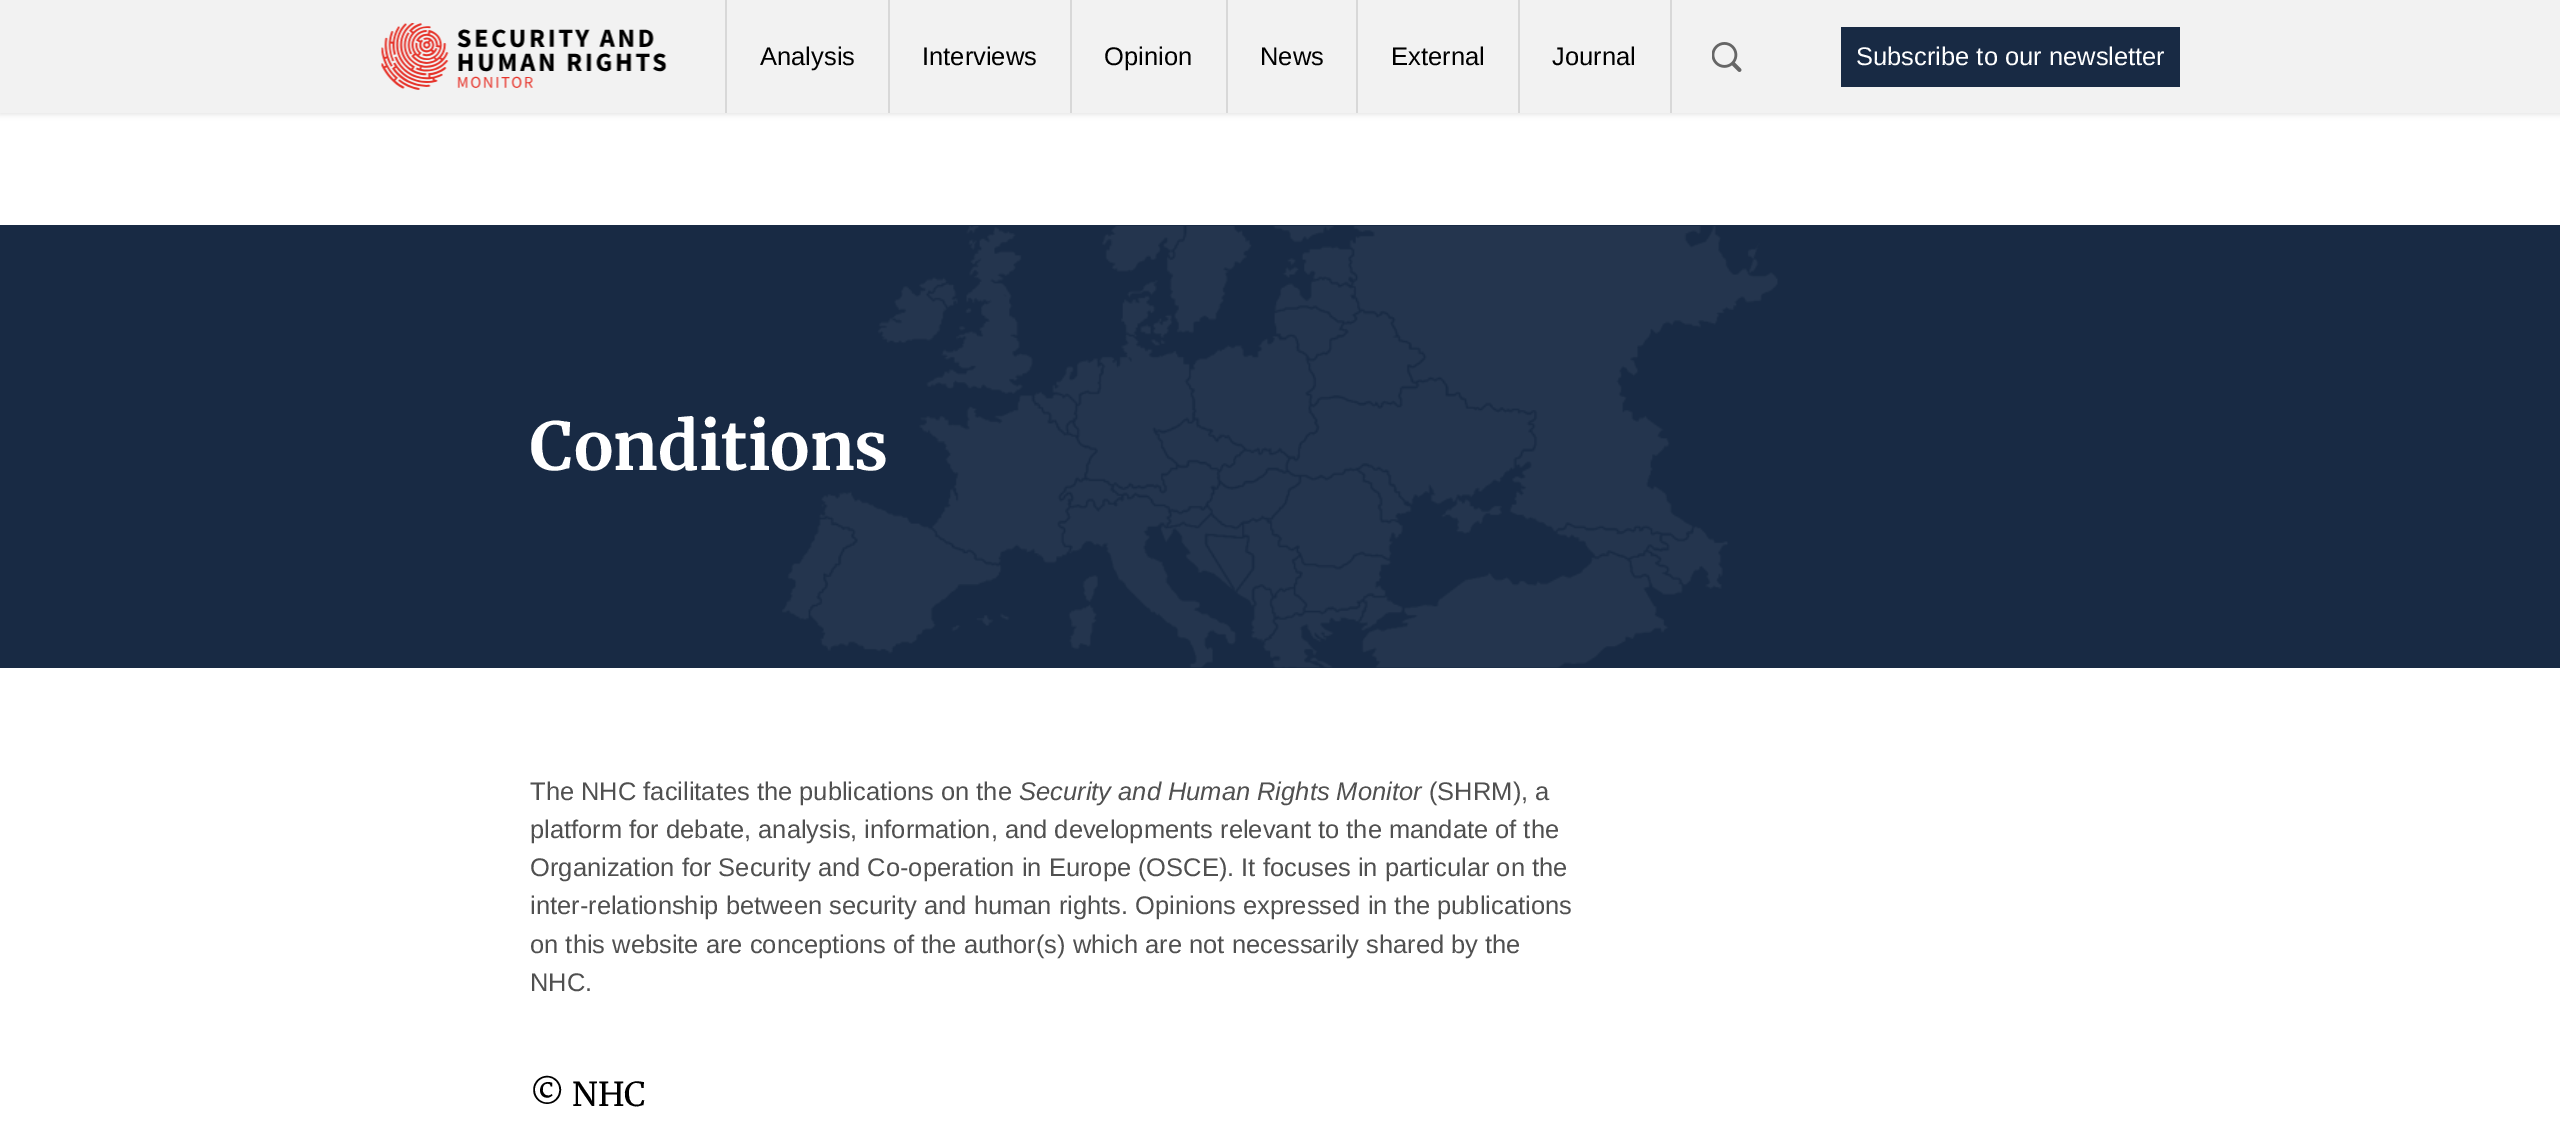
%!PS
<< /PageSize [2560 1131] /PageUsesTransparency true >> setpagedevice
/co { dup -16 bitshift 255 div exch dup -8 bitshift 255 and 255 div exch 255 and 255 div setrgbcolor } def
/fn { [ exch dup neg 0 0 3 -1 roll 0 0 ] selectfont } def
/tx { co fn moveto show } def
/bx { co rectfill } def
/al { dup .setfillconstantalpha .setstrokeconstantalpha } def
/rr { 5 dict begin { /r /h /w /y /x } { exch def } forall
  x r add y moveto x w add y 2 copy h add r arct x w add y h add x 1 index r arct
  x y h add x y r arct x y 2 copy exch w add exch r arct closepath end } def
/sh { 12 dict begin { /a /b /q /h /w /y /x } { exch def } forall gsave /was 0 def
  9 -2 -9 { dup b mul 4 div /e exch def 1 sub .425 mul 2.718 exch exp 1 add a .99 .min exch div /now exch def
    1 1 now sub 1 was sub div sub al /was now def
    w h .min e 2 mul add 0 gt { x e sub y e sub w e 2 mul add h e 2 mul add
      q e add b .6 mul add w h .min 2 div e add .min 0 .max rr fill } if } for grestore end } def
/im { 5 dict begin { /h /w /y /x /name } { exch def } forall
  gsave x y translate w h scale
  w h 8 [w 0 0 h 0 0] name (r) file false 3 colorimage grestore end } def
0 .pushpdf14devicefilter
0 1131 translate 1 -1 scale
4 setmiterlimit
0 0 2560 1131 16#FFFFFF bx
16#000000 co
0 2 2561 112 0 3 .12 sh
0 0 2560 113 16#F2F2F2 bx
(media/1.raw) 381 23 286 67 im
725 0 2 113 16#D8D8D8 bx
888 0 2 113 16#D8D8D8 bx
1070 0 2 113 16#D8D8D8 bx
1226 0 2 113 16#D8D8D8 bx
1356 0 2 113 16#D8D8D8 bx
1518 0 2 113 16#D8D8D8 bx
1670 0 2 113 16#D8D8D8 bx
(media/2.raw) 1712 42 30 30 im
1841 27 339 60 16#182A44 bx
0 225 2560 443 16#182A44 bx
(media/3.raw) 782 226 996 442 im
(Analysis) 760 65 /LiberationSans-Regular 25.5 16#000000 tx
(Interviews) 922 65 /LiberationSans-Regular 25.5 16#000000 tx
(Opinion) 1104 65 /LiberationSans-Regular 25.5 16#000000 tx
(News) 1260 65 /LiberationSans-Regular 25.5 16#000000 tx
(External) 1391 65 /LiberationSans-Regular 25.5 16#000000 tx
(Journal) 1552 65 /LiberationSans-Regular 25.5 16#000000 tx
(Subscribe to our newsletter) 1856 65 /LiberationSans-Regular 25.5 16#FFFFFF tx
(Conditions) 530 470 /Merriweather-Bold 66 16#FFFFFF tx
(The NHC facilitates the publications on the) 530 800 /LiberationSans-Regular 25.5 16#505050 tx
(Security and Human Rights Monitor) 1019 800 /LiberationSans-Italic 25.5 16#505050 tx
(\(SHRM\), a) 1429 800 /LiberationSans-Regular 25.5 16#505050 tx
(platform for debate, analysis, information, and developments relevant to the mandate of the) 530 838 /LiberationSans-Regular 25.5 16#505050 tx
(Organization for Security and Co-operation in Europe \(OSCE\). It focuses in particular on the) 530 876 /LiberationSans-Regular 25.5 16#505050 tx
(inter-relationship between security and human rights. Opinions expressed in the publications) 530 914 /LiberationSans-Regular 25.5 16#505050 tx
(on this website are conceptions of the author\(s\) which are not necessarily shared by the) 530 953 /LiberationSans-Regular 25.5 16#505050 tx
(NHC.) 530 991 /LiberationSans-Regular 25.5 16#505050 tx
(© NHC) 530 1106 /Merriweather-Regular 33 16#000000 tx
.poppdf14devicefilter showpage
